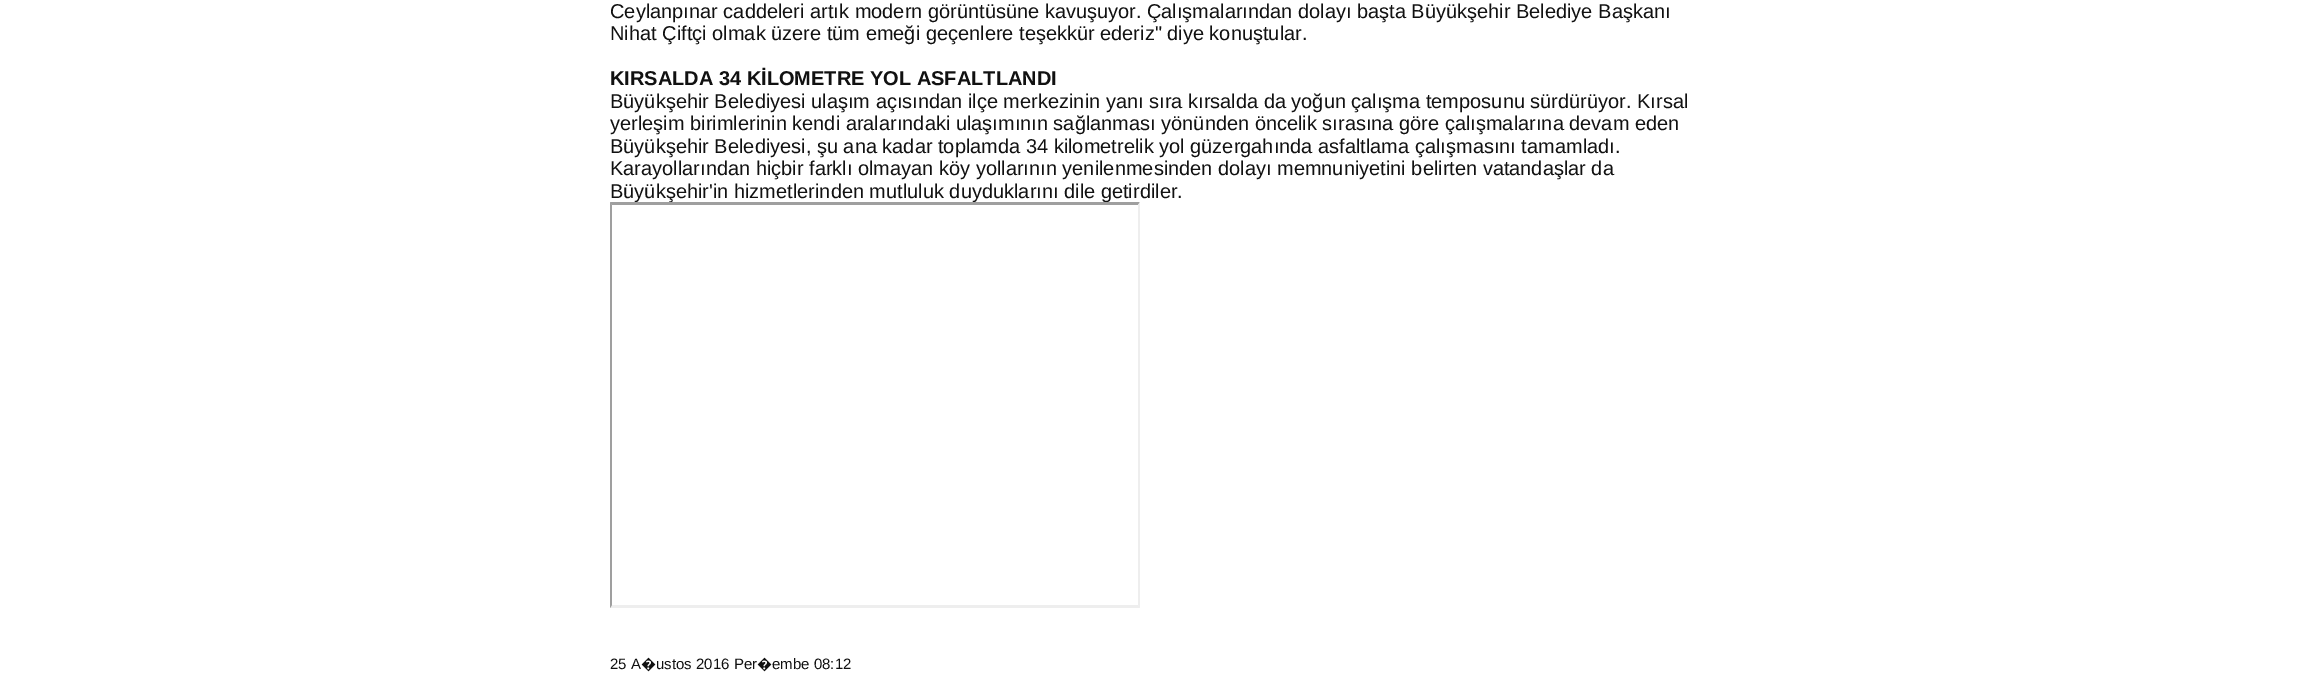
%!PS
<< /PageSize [2319 681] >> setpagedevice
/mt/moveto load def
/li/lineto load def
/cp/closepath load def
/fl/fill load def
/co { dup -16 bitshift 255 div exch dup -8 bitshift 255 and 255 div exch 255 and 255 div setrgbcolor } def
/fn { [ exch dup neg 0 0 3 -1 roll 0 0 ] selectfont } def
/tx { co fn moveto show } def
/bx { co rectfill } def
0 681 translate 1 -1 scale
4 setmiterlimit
0 0 2319 681 16#FFFFFF bx
(Ceylanpınar caddeleri artık modern görüntüsüne kavuşuyor. Çalışmalarından dolayı başta Büyükşehir Belediye Başkanı) 610 18 /LiberationSans-Regular 20 16#111111 tx
(Nihat Çiftçi olmak üzere tüm emeği geçenlere teşekkür ederiz" diye konuştular.) 610 40 /LiberationSans-Regular 20 16#111111 tx
(KIRSALDA 34 KİLOMETRE YOL ASFALTLANDI) 610 85 /LiberationSans-Bold 20 16#111111 tx
(Büyükşehir Belediyesi ulaşım açısından ilçe merkezinin yanı sıra kırsalda da yoğun çalışma temposunu sürdürüyor. Kırsal) 610 108 /LiberationSans-Regular 20 16#111111 tx
(yerleşim birimlerinin kendi aralarındaki ulaşımının sağlanması yönünden öncelik sırasına göre çalışmalarına devam eden) 610 130 /LiberationSans-Regular 20 16#111111 tx
(Büyükşehir Belediyesi, şu ana kadar toplamda 34 kilometrelik yol güzergahında asfaltlama çalışmasını tamamladı.) 610 153 /LiberationSans-Regular 20 16#111111 tx
(Karayollarından hiçbir farklı olmayan köy yollarının yenilenmesinden dolayı memnuniyetini belirten vatandaşlar da) 610 175 /LiberationSans-Regular 20 16#111111 tx
(Büyükşehir'in hizmetlerinden mutluluk duyduklarını dile getirdiler.) 610 198 /LiberationSans-Regular 20 16#111111 tx
16#9F9F9F co
610 202 mt 1140 202 li 1138 205 li 612 205 li cp fl
16#EEEEEE co
1140 202 mt 1140 608 li 1138 605 li 1138 205 li cp fl
1140 608 mt 610 608 li 612 605 li 1138 605 li cp fl
16#9F9F9F co
610 608 mt 610 202 li 612 205 li 612 605 li cp fl
(25 A) 610 669 /LiberationSans-Regular 15 16#111111 tx
(�) 641 669 /NotoSans-Regular 15 16#111111 tx
(ustos 2016 Per) 656 669 /LiberationSans-Regular 15 16#111111 tx
(�) 757 669 /NotoSans-Regular 15 16#111111 tx
(embe 08:12) 772 669 /LiberationSans-Regular 15 16#111111 tx
showpage
